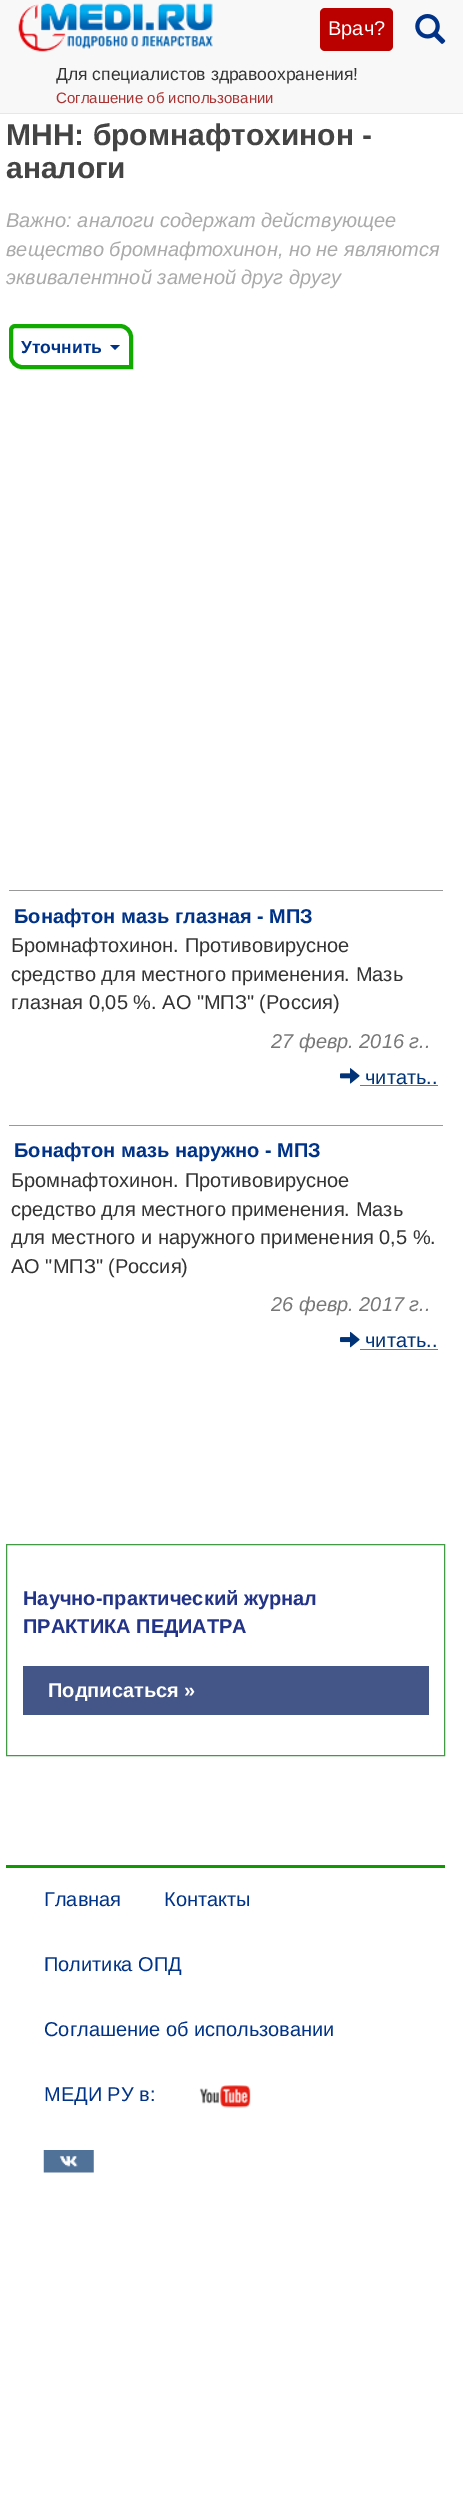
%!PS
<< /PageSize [463 2506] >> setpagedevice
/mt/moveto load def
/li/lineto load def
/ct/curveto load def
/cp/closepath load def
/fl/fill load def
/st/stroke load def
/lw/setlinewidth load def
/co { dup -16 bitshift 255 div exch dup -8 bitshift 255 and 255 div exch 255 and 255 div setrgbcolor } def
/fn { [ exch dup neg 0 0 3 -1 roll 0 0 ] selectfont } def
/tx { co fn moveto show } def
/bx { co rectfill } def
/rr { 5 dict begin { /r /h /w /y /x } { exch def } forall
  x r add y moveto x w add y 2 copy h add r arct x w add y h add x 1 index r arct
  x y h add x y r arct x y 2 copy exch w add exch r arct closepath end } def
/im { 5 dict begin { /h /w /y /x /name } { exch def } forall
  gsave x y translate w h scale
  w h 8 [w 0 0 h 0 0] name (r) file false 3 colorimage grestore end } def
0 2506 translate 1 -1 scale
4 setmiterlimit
0 0 463 2506 16#FFFFFF bx
0 0 463 113 16#F8F8F8 bx
0 113 463 1 16#E7E7E7 bx
(media/1.raw) 18 3 195 49 im
16#BB0000 co
320 8 73 43 5 rr fl
(media/2.raw) 415 14 31 30 im
16#11AA00 co
4 lw
15 326 mt 120 326 li 126 326 131 331 131 337 ct 131 367 li 22 367 li 16 367 11 362 11 356 ct 11 330 li 11 328 13 326 15 326 ct cp st
16#003388 co
110 345 mt 120 345 li 115 350 li cp fl
9 890 434 1 16#999999 bx
(media/3.raw) 340 1068 20 16 im
360 1085 78 1 16#777777 bx
9 1125 434 1 16#999999 bx
(media/4.raw) 340 1331 20 17 im
360 1349 78 1 16#777777 bx
16#449944 co
1 lw
6.5 1544.5 438 211 rectstroke
23 1666 406 49 16#445588 bx
6 1865 439 3 16#119900 bx
(media/5.raw) 199 2085 52 23 im
(media/6.raw) 43 2150 51 23 im
(Врач?) 328 35 /LiberationSans-Regular 20 16#FFFFFF tx
(Для специалистов здравоохранения!) 56 80 /LiberationSans-Regular 17.5 16#333333 tx
(Соглашение об использовании) 56 103 /LiberationSans-Regular 15 16#AA3333 tx
(МНН: бромнафтохинон -) 6 145 /LiberationSans-Bold 30 16#444444 tx
(аналоги) 6 178 /LiberationSans-Bold 30 16#444444 tx
(Важно: аналоги содержат действующее) 6 227 /LiberationSans-Italic 20 16#AAAAAA tx
(вещество бромнафтохинон, но не являются) 6 256 /LiberationSans-Italic 20 16#AAAAAA tx
(эквивалентной заменой друг другу) 6 284 /LiberationSans-Italic 20 16#AAAAAA tx
(Уточнить) 21 353 /LiberationSans-Bold 17.5 16#003388 tx
(Бонафтон мазь глазная - МПЗ) 14 923 /LiberationSans-Bold 20 16#003388 tx
(Бромнафтохинон. Противовирусное) 11 952 /LiberationSans-Regular 20 16#333333 tx
(средство для местного применения. Мазь) 11 981 /LiberationSans-Regular 20 16#333333 tx
(глазная 0,05 %. АО "МПЗ" \(Россия\)) 11 1009 /LiberationSans-Regular 20 16#333333 tx
(27 февр. 2016 г..) 271 1048 /LiberationSans-Italic 20 16#777777 tx
(читать..) 365 1084 /LiberationSans-Regular 20 16#003377 tx
(Бонафтон мазь наружно - МПЗ) 14 1157 /LiberationSans-Bold 20 16#003388 tx
(Бромнафтохинон. Противовирусное) 11 1187 /LiberationSans-Regular 20 16#333333 tx
(средство для местного применения. Мазь) 11 1216 /LiberationSans-Regular 20 16#333333 tx
(для местного и наружного применения 0,5 %.) 11 1244 /LiberationSans-Regular 20 16#333333 tx
(АО "МПЗ" \(Россия\)) 11 1273 /LiberationSans-Regular 20 16#333333 tx
(26 февр. 2017 г..) 271 1311 /LiberationSans-Italic 20 16#777777 tx
(читать..) 365 1347 /LiberationSans-Regular 20 16#003377 tx
(Научно-практический журнал) 23 1605 /LiberationSans-Bold 20 16#223388 tx
(ПРАКТИКА ПЕДИАТРА) 23 1633 /LiberationSans-Bold 20 16#223388 tx
(Подписаться ») 48 1697 /LiberationSans-Bold 20 16#FFFFFF tx
(Главная) 44 1906 /LiberationSans-Regular 20 16#003388 tx
(Контакты) 164 1906 /LiberationSans-Regular 20 16#003388 tx
(Политика ОПД) 44 1971 /LiberationSans-Regular 20 16#003388 tx
(Соглашение об использовании) 44 2036 /LiberationSans-Regular 20 16#003388 tx
(МЕДИ РУ в:) 44 2101 /LiberationSans-Regular 20 16#003388 tx
showpage
